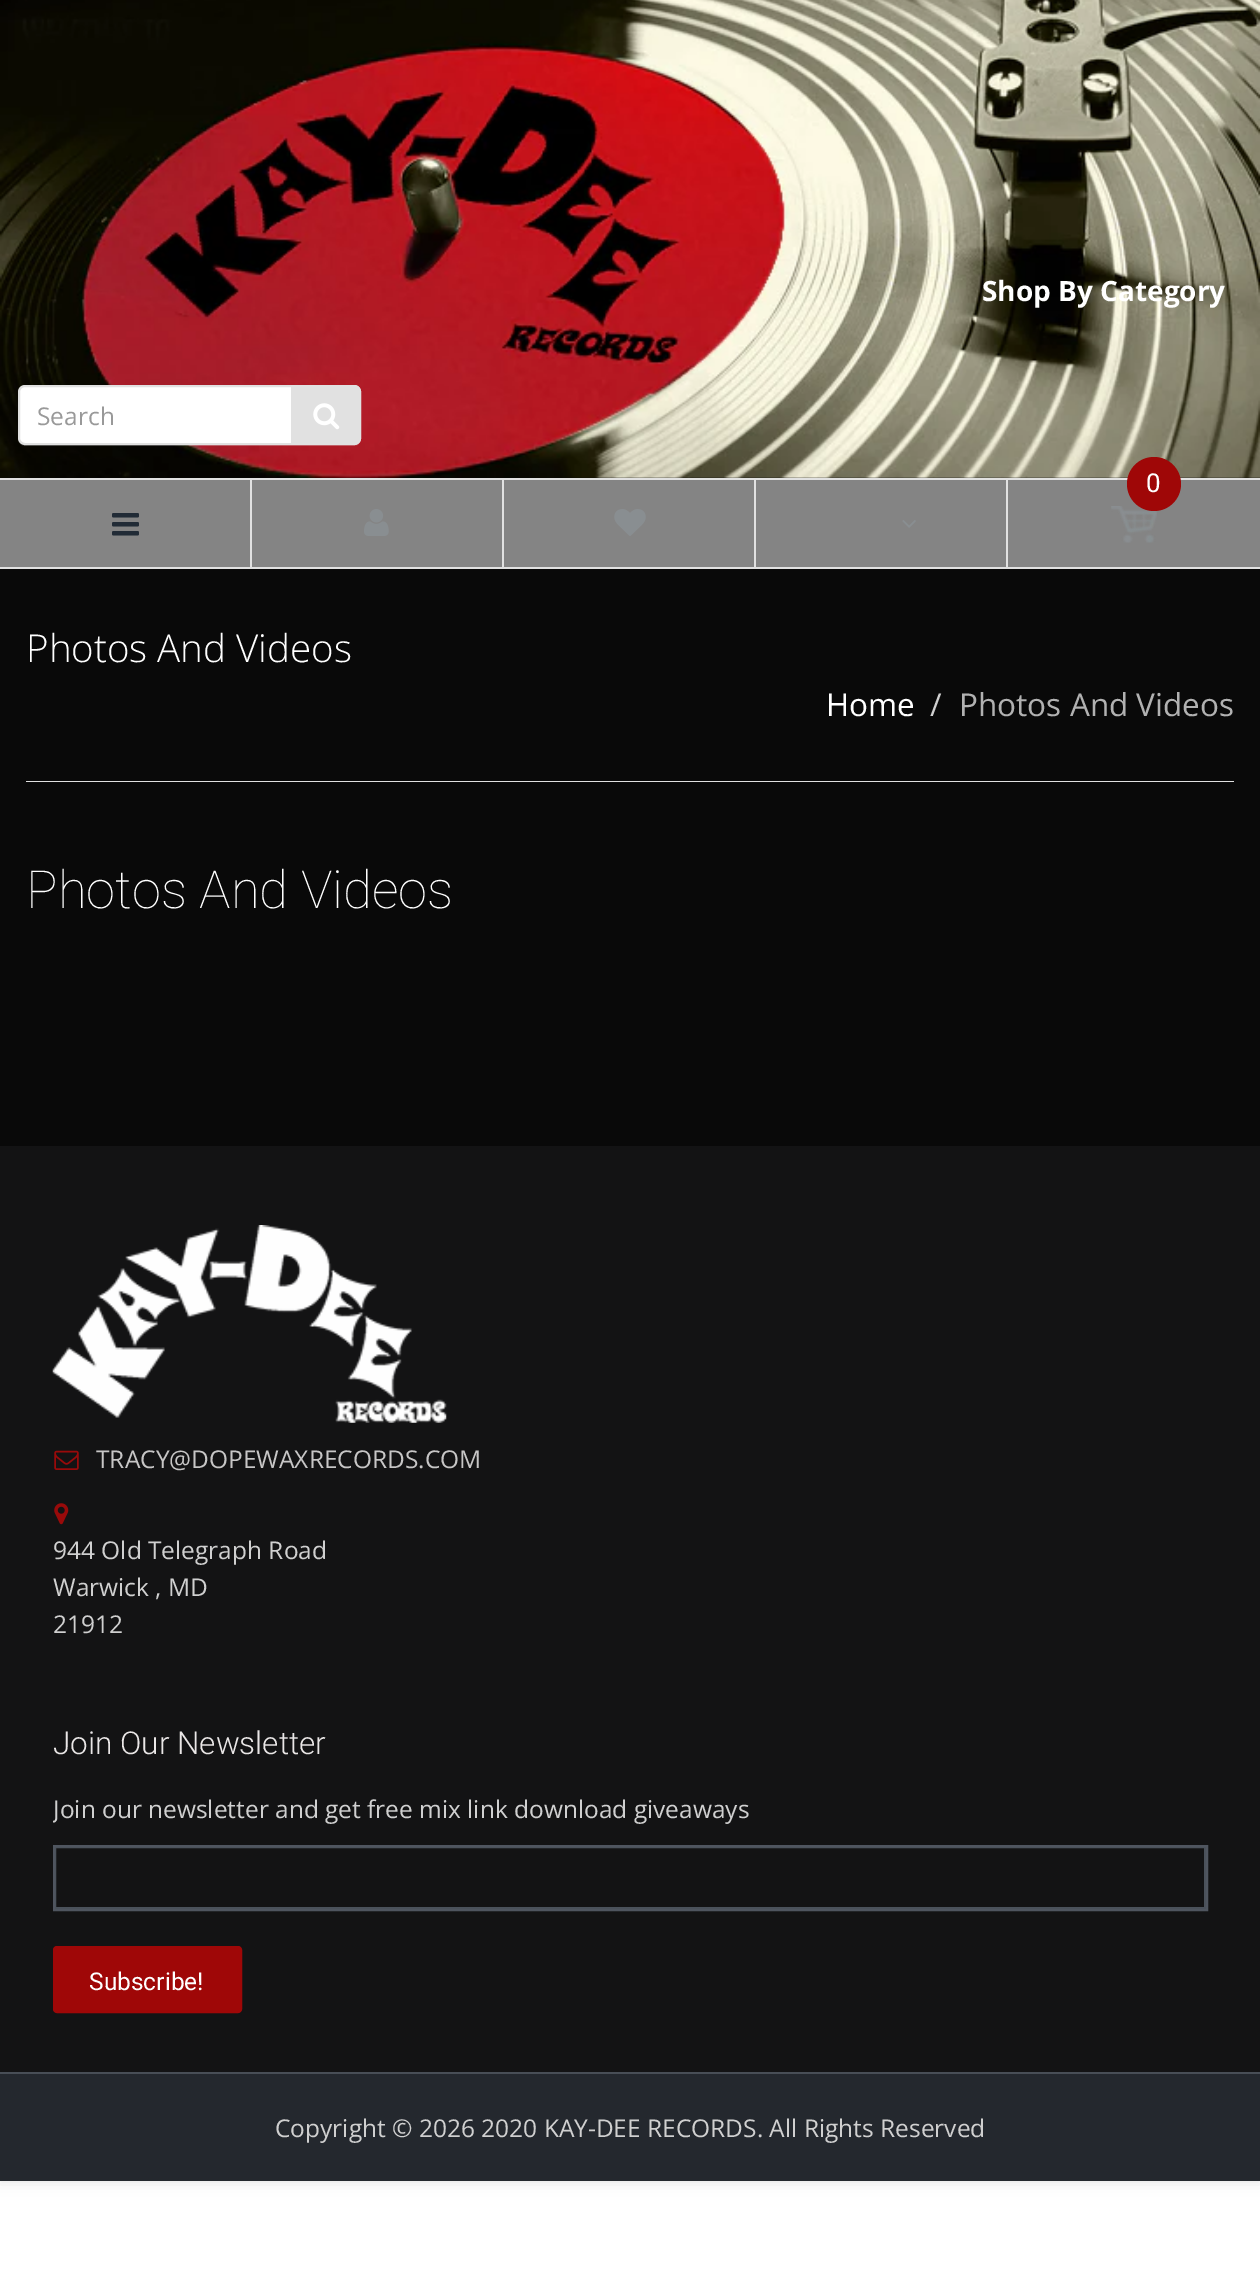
%!PS
<< /PageSize [1260 2275] /PageUsesTransparency true >> setpagedevice
/mt/moveto load def
/li/lineto load def
/ct/curveto load def
/cp/closepath load def
/fl/fill load def
/st/stroke load def
/gs/gsave load def
/gr/grestore load def
/lw/setlinewidth load def
/co { dup -16 bitshift 255 div exch dup -8 bitshift 255 and 255 div exch 255 and 255 div setrgbcolor } def
/fn { [ exch dup neg 0 0 3 -1 roll 0 0 ] selectfont } def
/tx { co fn moveto show } def
/bx { co rectfill } def
/al { dup .setfillconstantalpha .setstrokeconstantalpha } def
/ci { newpath 0 360 arc closepath } def
/rr { 5 dict begin { /r /h /w /y /x } { exch def } forall
  x r add y moveto x w add y 2 copy h add r arct x w add y h add x 1 index r arct
  x y h add x y r arct x y 2 copy exch w add exch r arct closepath end } def
/sh { 12 dict begin { /a /b /q /h /w /y /x } { exch def } forall gsave /was 0 def
  9 -2 -9 { dup b mul 4 div /e exch def 1 sub .425 mul 2.718 exch exp 1 add a .99 .min exch div /now exch def
    1 1 now sub 1 was sub div sub al /was now def
    w h .min e 2 mul add 0 gt { x e sub y e sub w e 2 mul add h e 2 mul add
      q e add b .6 mul add w h .min 2 div e add .min 0 .max rr fill } if } for grestore end } def
/im { 5 dict begin { /h /w /y /x /name } { exch def } forall
  gsave x y translate w h scale
  w h 8 [w 0 0 h 0 0] name (r) file false 3 colorimage grestore end } def
0 .pushpdf14devicefilter
0 2275 translate 1 -1 scale
4 setmiterlimit
0 0 1260 2275 16#FFFFFF bx
16#DDDDDD co
0 -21 1260 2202 0 7 1 sh
0 477 1260 669 16#090909 bx
(media/1.raw) 0 0 1260 478 im
0 567 1260 2 16#E1E1E1 bx
0 480 1006 87 16#848484 bx
0 478 1260 2 16#E1E1E1 bx
250 480 2 87 16#E1E1E1 bx
(media/2.raw) 112 513 27 23 im
502 480 2 87 16#E1E1E1 bx
(media/3.raw) 364 509 25 27 im
754 480 2 87 16#E1E1E1 bx
(media/4.raw) 614 509 32 27 im
1006 480 2 87 16#E1E1E1 bx
(media/5.raw) 902 520 14 8 im
0.1 al
16#FFFFFF co
18 440 mt 19 444 22 446 25 446 ct 354 446 li 358 446 361 443 361 439 ct 361 394 li 360 391 li 360 438 li 360 441 357 444 354 444 ct 24 444 li 22 444 19 443 18 440 ct cp fl
1 al
19 386 341 58 6 rr gs fl gr
16#E1E1E1 co
2 lw
st
291 385 mt 354 385 li 358 385 361 388 361 392 ct 361 438 li 361 442 358 445 354 445 ct 291 445 li cp fl
(media/6.raw) 313 403 27 27 im
1008 480 252 87 16#848484 bx
(media/7.raw) 1111 506 46 37 im
16#9F0707 co
1154 484 27 ci fl
26 781 1208 1 16#E1E1E1 bx
0 1146 1260 926 16#131314 bx
(media/8.raw) 52 1225 395 198 im
(media/9.raw) 54 1450 25 20 im
(media/10.raw) 54 1503 15 22 im
16#4A515A co
55 1847 1150 61 rectstroke
16#4F555F co
54 1846 1153 64 rectstroke
16#9F0707 co
54 1947 187 65 3 rr gs fl gr
st
0 2074 1260 107 16#24282E bx
0 2072 1260 2 16#484E56 bx
(Shop By Category) 982 301 /OpenSans-Bold 28 16#FFFFFF tx
(Search) 37 425 /OpenSans-Regular 24.5 16#999999 tx
(0) 1146 492 /Roboto-Regular 26 16#FFFFFF tx
(Photos And Videos) 26 662 /OpenSans-Light 38.5 16#FFFFFF tx
(Home) 826 716 /OpenSans-Regular 31.5 16#FFFFFF tx
(/) 930 716 /OpenSans-Regular 31.5 16#D0D0D0 tx
(Photos And Videos) 959 716 /OpenSans-Regular 31.5 16#B1B1B1 tx
(Photos And Videos) 26 908 /Roboto-Thin 52.5 16#FFFFFF tx
(TRACY@DOPEWAXRECORDS.COM) 96 1468 /OpenSans-Regular 24.5 16#C7C6C6 tx
(944 Old Telegraph Road) 53 1559 /OpenSans-Regular 24.5 16#D0D0D0 tx
(Warwick , MD) 53 1596 /OpenSans-Regular 24.5 16#D0D0D0 tx
(21912) 53 1633 /OpenSans-Regular 24.5 16#D0D0D0 tx
(Join Our Newsletter) 53 1754 /Roboto-Light 31.5 16#EAE7E7 tx
gs
53 1720 1155 293 rectclip
(Join our newsletter and get free mix link download giveaways) 53 1818 /OpenSans-Regular 24.5 16#D0D0D0 tx
gr
(Subscribe!) 89 1990 /Roboto-Regular 24.5 16#FFFFFF tx
(Copyright © 2026 2020 KAY-DEE RECORDS. All Rights Reserved) 275 2137 /OpenSans-Regular 24.5 16#D0D0D0 tx
.poppdf14devicefilter showpage
